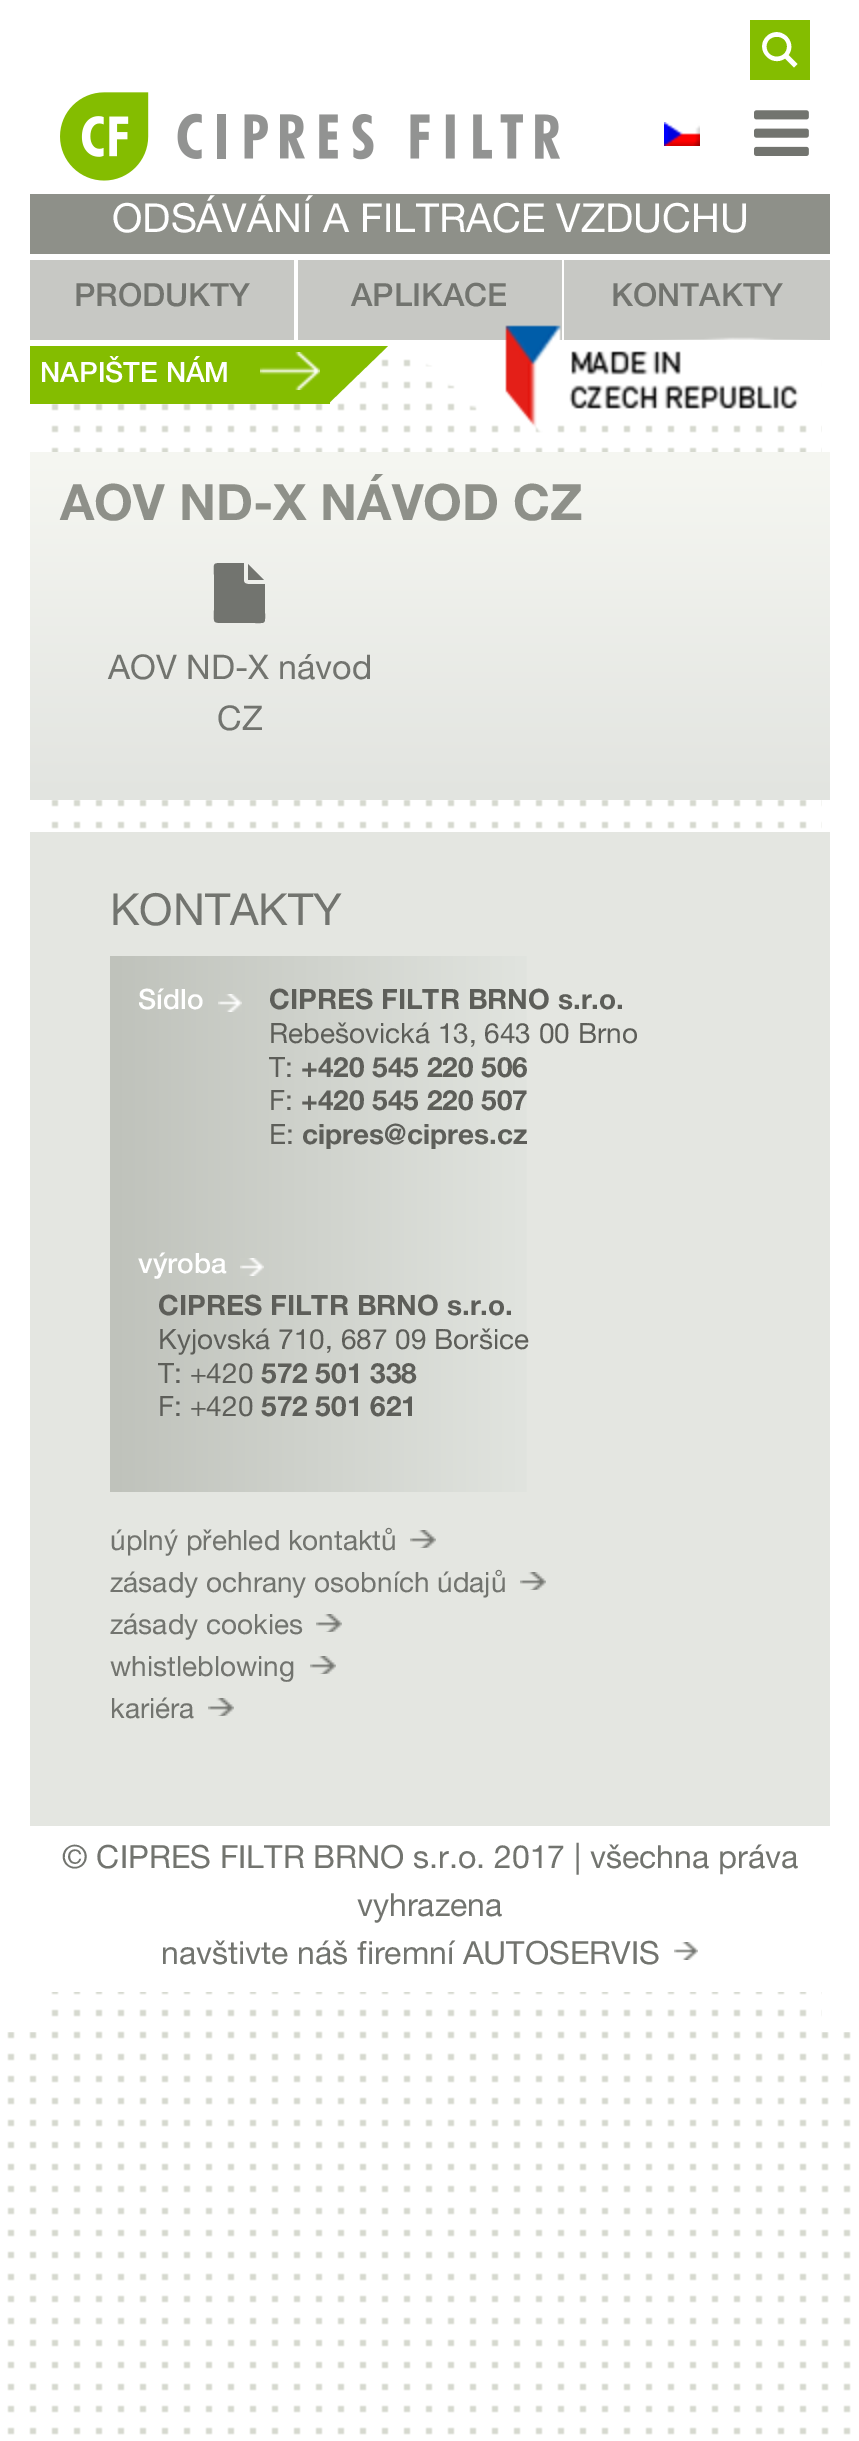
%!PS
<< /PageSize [859 2441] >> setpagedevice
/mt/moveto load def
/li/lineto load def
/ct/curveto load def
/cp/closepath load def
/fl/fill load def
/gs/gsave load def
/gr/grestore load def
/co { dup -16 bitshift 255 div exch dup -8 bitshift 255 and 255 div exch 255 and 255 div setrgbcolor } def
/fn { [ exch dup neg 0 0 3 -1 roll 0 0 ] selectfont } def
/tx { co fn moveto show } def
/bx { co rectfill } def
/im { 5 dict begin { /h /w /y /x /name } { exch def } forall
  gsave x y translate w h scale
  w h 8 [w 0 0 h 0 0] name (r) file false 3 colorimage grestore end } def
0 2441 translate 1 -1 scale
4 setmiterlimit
0 0 859 2441 16#FFFFFF bx
(media/1.raw) 7 359 844 2076 im
750 20 60 60 16#84BD00 bx
16#FFFFFF co
797.5 64 mt 788.5 55 li 798.5 41 779.5 24 766.5 36.5 ct 754 49 771 68 785 58.5 ct 794 67.5 li cp 766.5 46.5 mt 766.5 33.5 787 33.5 787 46.5 ct 787 60 766.5 60 766.5 46.5 ct cp fl
(media/2.raw) 60 92 500 89 im
(media/3.raw) 664 122 36 24 im
(media/4.raw) 754 110 55 46 im
30 194 800 60 16#8E9089 bx
30 260 264 80 16#C7C8C4 bx
298 260 264 80 16#C7C8C4 bx
564 260 266 80 16#C7C8C4 bx
7 359 30 1673 16#FFFFFF bx
30 346 300 58 16#84BD00 bx
(media/5.raw) 260 352 60 38 im
328 404 mt 328 346 li 388 346 li cp fl
(media/6.raw) 425 325 397 108 im
822 359 29 1673 16#FFFFFF bx
gs 30 452 mt 830 452 li 830 800 li 30 800 li cp clip newpath
<< /ShadingType 2 /ColorSpace /DeviceRGB /Coords [430 452 430 800] /Extend [true true] /Function << /FunctionType 2 /Domain [0 1] /C0 [.965 .969 .949] /C1 [.886 .894 .878] /N 1 >> >> shfill gr
16#72746F co
248 580 mt 248 564 li 264 580 li cp 244 581 mt 244 585 251 584 253 584 ct 265 584 li 265 613 li 265 624 266 623 255 623 ct 225 623 li 212 623 214 623 214 610 ct 214 575 li 214 564 212 563 222 563 ct 244 563 li cp fl
30 832 800 994 16#E4E6E1 bx
gs 110 956 mt 527 956 li 527 1220 li 110 1220 li cp clip newpath
<< /ShadingType 2 /ColorSpace /DeviceRGB /Coords [110 1088 750 1088] /Extend [true true] /Function << /FunctionType 3 /Domain [0 1] /Functions [<< /FunctionType 2 /Domain [0 1] /C0 [.749 .761 .733] /C1 [.886 .894 .875] /N 1 >> << /FunctionType 2 /Domain [0 1] /C0 [.886 .894 .875] /C1 [.886 .894 .875] /N 1 >> << /FunctionType 2 /Domain [0 1] /C0 [.886 .894 .875] /C1 [.89 .898 .875] /N 1 >>] /Bounds [.66 .85] /Encode [0 1 0 1 0 1] >> >> shfill gr
(media/7.raw) 218 994 24 18 im
gs 110 1220 mt 527 1220 li 527 1492 li 110 1492 li cp clip newpath
<< /ShadingType 2 /ColorSpace /DeviceRGB /Coords [110 1356 750 1356] /Extend [true true] /Function << /FunctionType 3 /Domain [0 1] /Functions [<< /FunctionType 2 /Domain [0 1] /C0 [.749 .761 .733] /C1 [.886 .894 .875] /N 1 >> << /FunctionType 2 /Domain [0 1] /C0 [.886 .894 .875] /C1 [.886 .894 .875] /N 1 >> << /FunctionType 2 /Domain [0 1] /C0 [.886 .894 .875] /C1 [.89 .898 .875] /N 1 >>] /Bounds [.66 .85] /Encode [0 1 0 1 0 1] >> >> shfill gr
(media/8.raw) 240 1258 24 18 im
(media/9.raw) 410 1530 26 18 im
(media/10.raw) 520 1572 26 18 im
(media/10.raw) 316 1614 26 18 im
(media/10.raw) 310 1656 26 18 im
(media/11.raw) 208 1698 26 18 im
51 1833 771 159 16#FFFFFF bx
(media/12.raw) 674 1942 24 18 im
(ODSÁVÁNÍ A FILTRACE VZDUCHU) 112 232 /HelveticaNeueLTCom-Regular 40 16#FFFFFF tx
(PRODUKTY) 74 306 /HelveticaNeueLTCom-Medium 32 16#72746F tx
(APLIKACE) 351 306 /HelveticaNeueLTCom-Medium 32 16#72746F tx
(KONTAKTY) 611 306 /HelveticaNeueLTCom-Medium 32 16#72746F tx
(NAPIŠTE NÁM) 40 382 /HelveticaNeueLTCom-Medium 28 16#FFFFFF tx
(AOV ND-X NÁVOD CZ) 60 520 /HelveticaNeueLTCom-Bold 50 16#8E9089 tx
(AOV ND-X návod) 108 679 /HelveticaNeueLTCom-Regular 34 16#72746F tx
(CZ) 217 730 /HelveticaNeueLTCom-Regular 34 16#72746F tx
(KONTAKTY) 110 925 /HelveticaNeueLTCom-Regular 44 16#72746F tx
(Sídlo) 138 1009 /HelveticaNeueLTCom-Medium 28 16#FFFFFF tx
(CIPRES FILTR BRNO s.r.o.) 269 1009 /HelveticaNeueLTCom-Bold 28 16#5D5E59 tx
(Rebešovická 13, 643 00 Brno) 269 1043 /HelveticaNeueLTCom-Regular 28 16#5D5E59 tx
(T:) 269 1077 /HelveticaNeueLTCom-Regular 28 16#5D5E59 tx
(+420 545 220 506) 301 1077 /HelveticaNeueLTCom-Bold 28 16#5D5E59 tx
(F:) 269 1110 /HelveticaNeueLTCom-Regular 28 16#5D5E59 tx
(+420 545 220 507) 301 1110 /HelveticaNeueLTCom-Bold 28 16#5D5E59 tx
(E:) 269 1144 /HelveticaNeueLTCom-Regular 28 16#5D5E59 tx
(cipres@cipres.cz) 302 1144 /HelveticaNeueLTCom-Bold 28 16#5D5E59 tx
(výroba) 138 1273 /HelveticaNeueLTCom-Medium 28 16#FFFFFF tx
(CIPRES FILTR BRNO s.r.o.) 158 1315 /HelveticaNeueLTCom-Bold 28 16#5D5E59 tx
(Kyjovská 710, 687 09 Boršice) 158 1349 /HelveticaNeueLTCom-Regular 28 16#5D5E59 tx
(T: +420) 158 1383 /HelveticaNeueLTCom-Regular 28 16#5D5E59 tx
(572 501 338) 261 1383 /HelveticaNeueLTCom-Bold 28 16#5D5E59 tx
(F: +420) 158 1416 /HelveticaNeueLTCom-Regular 28 16#5D5E59 tx
(572 501 621) 261 1416 /HelveticaNeueLTCom-Bold 28 16#5D5E59 tx
(úplný přehled kontaktů) 110 1550 /HelveticaNeueLTCom-Regular 28 16#72746F tx
(zásady ochrany osobních údajů) 110 1592 /HelveticaNeueLTCom-Regular 28 16#72746F tx
(zásady cookies) 110 1634 /HelveticaNeueLTCom-Regular 28 16#72746F tx
(whistleblowing) 110 1676 /HelveticaNeueLTCom-Regular 28 16#72746F tx
(kariéra) 110 1718 /HelveticaNeueLTCom-Regular 28 16#72746F tx
(© CIPRES FILTR BRNO s.r.o. 2017 | všechna práva) 62 1868 /HelveticaNeueLTCom-Regular 32 16#72746F tx
(vyhrazena) 357 1916 /HelveticaNeueLTCom-Regular 32 16#72746F tx
(navštivte náš firemní AUTOSERVIS) 161 1964 /HelveticaNeueLTCom-Regular 32 16#72746F tx
showpage
